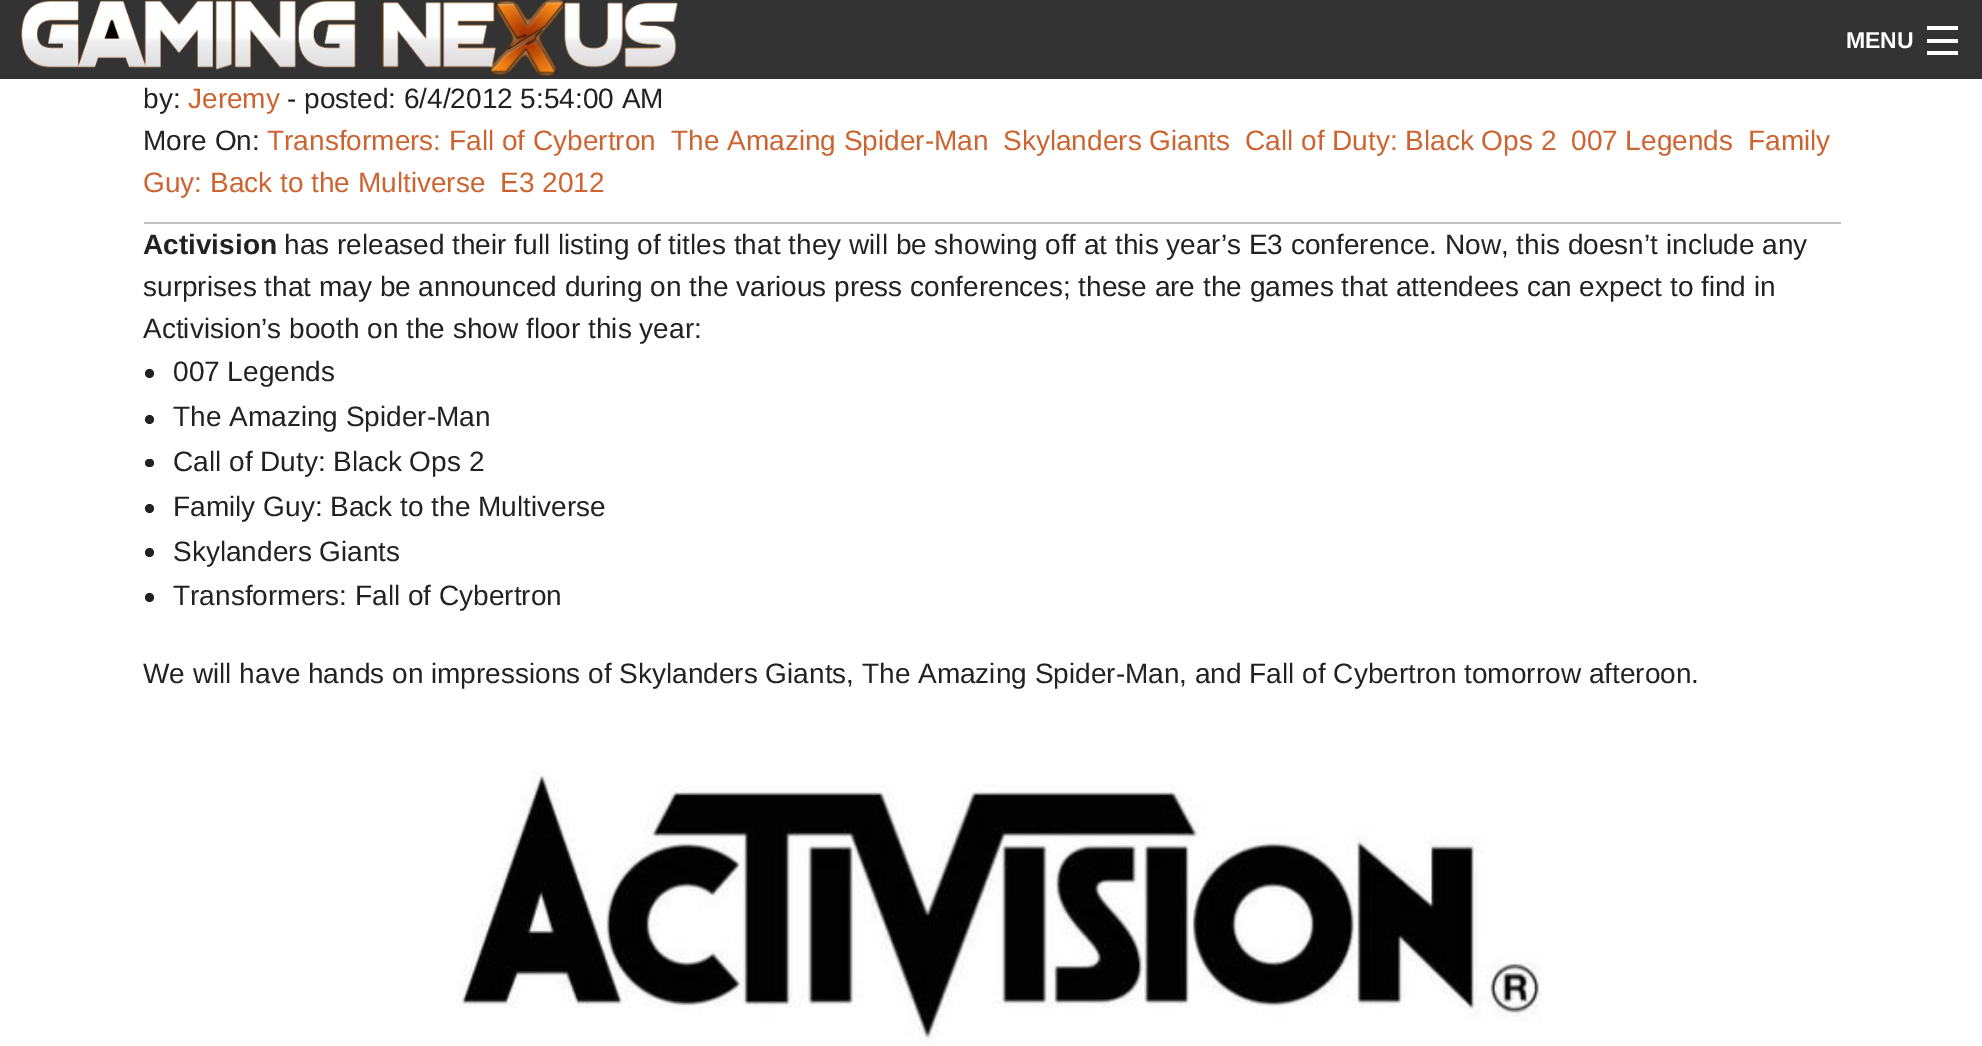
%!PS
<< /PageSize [1982 1046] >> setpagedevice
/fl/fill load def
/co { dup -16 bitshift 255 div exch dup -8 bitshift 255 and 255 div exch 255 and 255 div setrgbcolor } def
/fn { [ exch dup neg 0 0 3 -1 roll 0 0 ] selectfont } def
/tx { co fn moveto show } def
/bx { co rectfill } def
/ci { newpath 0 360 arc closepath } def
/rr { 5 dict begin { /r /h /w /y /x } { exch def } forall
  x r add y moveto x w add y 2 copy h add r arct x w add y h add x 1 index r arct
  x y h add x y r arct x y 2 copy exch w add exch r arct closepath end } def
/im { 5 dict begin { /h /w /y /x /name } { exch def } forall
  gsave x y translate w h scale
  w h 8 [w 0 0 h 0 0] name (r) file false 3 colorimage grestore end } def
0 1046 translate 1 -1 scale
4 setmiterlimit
0 0 1982 1046 16#FFFFFF bx
0 0 1982 79 16#333333 bx
(media/1.raw) 21 0 657 77 im
1927 51 31 4 16#FFFFFF bx
1927 39 31 4 16#FFFFFF bx
1927 26 31 4 16#FFFFFF bx
144 222 1697 2 16#C0C0C0 bx
16#222222 co
149.5 373.5 4.5 ci fl
149.5 419.5 4.5 ci fl
145 459 9 8 4 rr fl
149.5 508.5 4.5 ci fl
149.5 552.5 4.5 ci fl
149.5 597.5 4.5 ci fl
(media/2.raw) 455 770 1087 275 im
(MENU) 1846 48 /LiberationSans-Bold 23 16#FFFFFF tx
(by:) 143 108 /LiberationSans-Regular 28 16#222222 tx
(Jeremy) 188 108 /LiberationSans-Regular 28 16#CD6430 tx
(- posted: 6/4/2012 5:54:00 AM) 287 108 /LiberationSans-Regular 28 16#222222 tx
(More On:) 143 150 /LiberationSans-Regular 28 16#222222 tx
(Transformers: Fall of Cybertron) 267 150 /LiberationSans-Regular 28 16#CD6430 tx
(The Amazing Spider-Man) 671 150 /LiberationSans-Regular 28 16#CD6430 tx
(Skylanders Giants) 1003 150 /LiberationSans-Regular 28 16#CD6430 tx
(Call of Duty: Black Ops 2) 1245 150 /LiberationSans-Regular 28 16#CD6430 tx
(007 Legends) 1571 150 /LiberationSans-Regular 28 16#CD6430 tx
(Family) 1748 150 /LiberationSans-Regular 28 16#CD6430 tx
(Guy: Back to the Multiverse) 143 192 /LiberationSans-Regular 28 16#CD6430 tx
(E3 2012) 500 192 /LiberationSans-Regular 28 16#CD6430 tx
(Activision) 143 254 /LiberationSans-Bold 28 16#222222 tx
(has released their full listing of titles that they will be showing off at this year’s E3 conference. Now, this doesn’t include any) 284 254 /LiberationSans-Regular 28 16#222222 tx
(surprises that may be announced during on the various press conferences; these are the games that attendees can expect to find in) 143 296 /LiberationSans-Regular 28 16#222222 tx
(Activision’s booth on the show floor this year:) 143 338 /LiberationSans-Regular 28 16#222222 tx
(007 Legends) 173 381 /LiberationSans-Regular 28 16#222222 tx
(The Amazing Spider-Man) 173 426 /LiberationSans-Regular 28 16#222222 tx
(Call of Duty: Black Ops 2) 173 471 /LiberationSans-Regular 28 16#222222 tx
(Family Guy: Back to the Multiverse) 173 516 /LiberationSans-Regular 28 16#222222 tx
(Skylanders Giants) 173 561 /LiberationSans-Regular 28 16#222222 tx
(Transformers: Fall of Cybertron) 173 605 /LiberationSans-Regular 28 16#222222 tx
(We will have hands on impressions of Skylanders Giants, The Amazing Spider-Man, and Fall of Cybertron tomorrow afteroon.) 143 683 /LiberationSans-Regular 28 16#222222 tx
showpage
